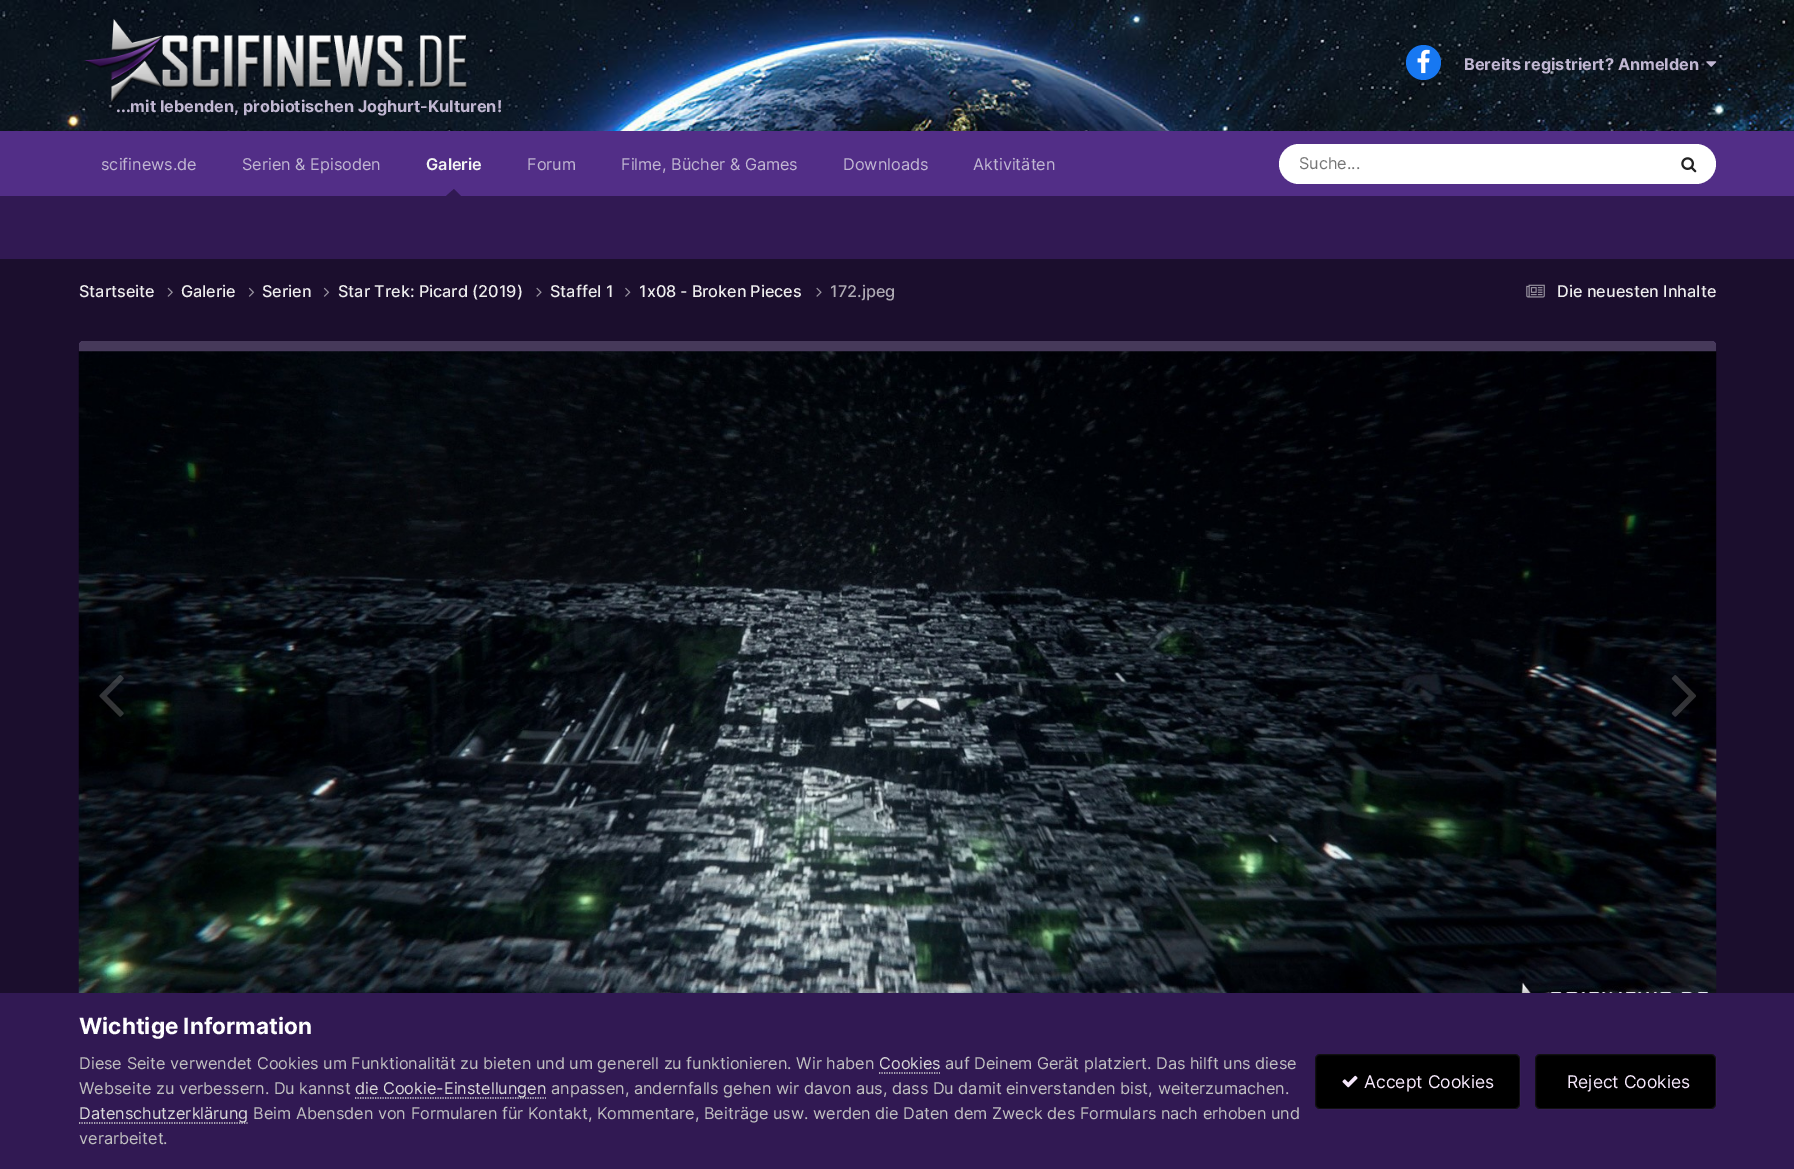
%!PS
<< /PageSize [1794 1169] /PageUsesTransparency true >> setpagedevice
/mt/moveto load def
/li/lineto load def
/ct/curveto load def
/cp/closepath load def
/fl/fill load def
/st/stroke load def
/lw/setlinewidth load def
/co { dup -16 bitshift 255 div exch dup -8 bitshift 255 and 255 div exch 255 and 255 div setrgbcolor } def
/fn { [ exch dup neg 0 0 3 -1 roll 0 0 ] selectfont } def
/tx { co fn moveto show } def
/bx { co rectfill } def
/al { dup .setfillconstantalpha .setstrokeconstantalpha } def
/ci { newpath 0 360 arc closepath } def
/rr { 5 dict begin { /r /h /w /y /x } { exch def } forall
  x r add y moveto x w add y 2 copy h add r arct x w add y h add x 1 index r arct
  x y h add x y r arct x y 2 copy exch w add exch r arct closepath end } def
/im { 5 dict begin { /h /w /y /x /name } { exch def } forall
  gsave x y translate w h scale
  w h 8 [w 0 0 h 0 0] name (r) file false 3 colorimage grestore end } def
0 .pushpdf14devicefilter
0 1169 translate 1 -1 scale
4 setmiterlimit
0 0 1794 1169 16#1B0E2D bx
(media/1.raw) 0 0 1794 131 im
(media/2.raw) 84 19 384 83 im
16#1778F2 co
1423.5 62.5 17.5 ci fl
(media/3.raw) 1417 49 13 25 im
(media/4.raw) 1706 61 11 6 im
0 131 1794 65 16#522E87 bx
16#311953 co
461 196 mt 446 196 li 454 189 li cp fl
16#FFFFFF co
1279 144 437 40 20 rr fl
(media/5.raw) 1681 157 16 16 im
0 196 1794 63 16#311953 bx
(media/6.raw) 167 287 6 10 im
(media/7.raw) 248 287 7 10 im
(media/7.raw) 323 287 7 10 im
(media/8.raw) 536 287 6 10 im
(media/9.raw) 625 287 6 10 im
(media/8.raw) 816 287 6 10 im
(media/10.raw) 1526 284 19 14 im
16#AF8EE0 co
84 341 mt 1711 341 li 1714 341 1716 343 1716 346 ct 1716 1044 li 79 1044 li 79 346 li 79 343 81 341 84 341 ct cp fl
0.6 al
16#000000 co
84 341 mt 1711 341 li 1714 341 1716 343 1716 346 ct 1716 1044 li 79 1044 li 79 346 li 79 343 81 341 84 341 ct cp fl
1 al
(media/11.raw) 78 351 1639 642 im
(media/12.raw) 99 675 25 42 im
(media/13.raw) 1671 675 25 42 im
0 993 1794 176 16#311953 bx
16#DADADA co
1.2 lw
[1.25 1.25] 0 setdash
879 1073 mt 940 1073 li st
355 1098 mt 546 1098 li st
79 1123 mt 247.5 1123 li st
16#000000 co
1315 1054 205 55 5 rr fl
0.07 al
16#F6E8FC co
1 lw
[] 0 setdash
1315.5 1054.5 204 54 4.5 rr st
1 al
(media/14.raw) 1342 1075 16 13 im
16#000000 co
1535 1054 181 55 5 rr fl
0.07 al
16#F6E8FC co
1535.5 1054.5 180 54 4.5 rr st
1 al
(Bereits registriert? Anmelden) 1464 70 /Inter-Bold 16.25 16#C1B7D2 tx
(...mit lebenden, probiotischen Joghurt-Kulturen!) 116 112 /Inter-Bold 16.25 16#C1B7D2 tx
(scifinews.de) 101 170 /Inter-Regular 16.25 16#C1B7D2 tx
(Serien & Episoden) 242 170 /Inter-Regular 16.25 16#C1B7D2 tx
(Galerie) 426 170 /Inter-SemiBold 16.25 16#F3F6F4 tx
(Forum) 527 170 /Inter-Regular 16.25 16#C1B7D2 tx
(Filme, Bücher & Games) 621 170 /Inter-Regular 16.25 16#C1B7D2 tx
(Downloads) 843 170 /Inter-Regular 16.25 16#C1B7D2 tx
(Aktivitäten) 973 170 /Inter-Regular 16.25 16#C1B7D2 tx
(Suche...) 1299 169 /Inter-Regular 16.25 16#757575 tx
(Startseite) 79 297 /Inter-Medium 16.25 16#EEEEEE tx
(Galerie) 181 297 /Inter-Medium 16.25 16#EEEEEE tx
(Serien) 262 297 /Inter-Medium 16.25 16#EEEEEE tx
(Star Trek: Picard \(2019\)) 338 297 /Inter-Medium 16.25 16#EEEEEE tx
(Staffel 1) 550 297 /Inter-Medium 16.25 16#EEEEEE tx
639 297 mt -.5 0 32 (1x08 - Broken Pieces) widthshow
(172.jpeg) 830 297 /Inter-Medium 16.25 16#AFABB4 tx
(Die neuesten Inhalte) 1557 297 /Inter-Medium 16.25 16#EEEEEE tx
(Wichtige Information) 79 1034 /Inter-Bold 22.5 16#FFFFFF tx
(Diese Seite verwendet Cookies um Funktionalität zu bieten und um generell zu funktionieren. Wir haben) 79 1069 /Inter-Regular 16.25 16#C0C0C0 tx
(Cookies) 879 1069 /Inter-Regular 16.25 16#DADADA tx
(auf Deinem Gerät platziert. Das hilft uns diese) 945 1069 /Inter-Regular 16.25 16#C0C0C0 tx
(Webseite zu verbessern. Du kannst) 79 1094 /Inter-Regular 16.25 16#C0C0C0 tx
(die Cookie-Einstellungen) 355 1094 /Inter-Regular 16.25 16#DADADA tx
(anpassen, andernfalls gehen wir davon aus, dass Du damit einverstanden bist, weiterzumachen.) 551 1094 /Inter-Regular 16.25 16#C0C0C0 tx
(Datenschutzerklärung) 79 1119 /Inter-Regular 16.25 16#DADADA tx
(Beim Abensden von Formularen für Kontakt, Kommentare, Beiträge usw. werden die Daten dem Zweck des Formulars nach erhoben und) 253 1119 /Inter-Regular 16.25 16#C0C0C0 tx
(verarbeitet.) 79 1144 /Inter-Regular 16.25 16#C0C0C0 tx
(Accept Cookies) 1364 1088 /Inter-Regular 17.5 16#F6E8FC tx
(Reject Cookies) 1567 1088 /Inter-Regular 17.5 16#F6E8FC tx
.poppdf14devicefilter showpage
